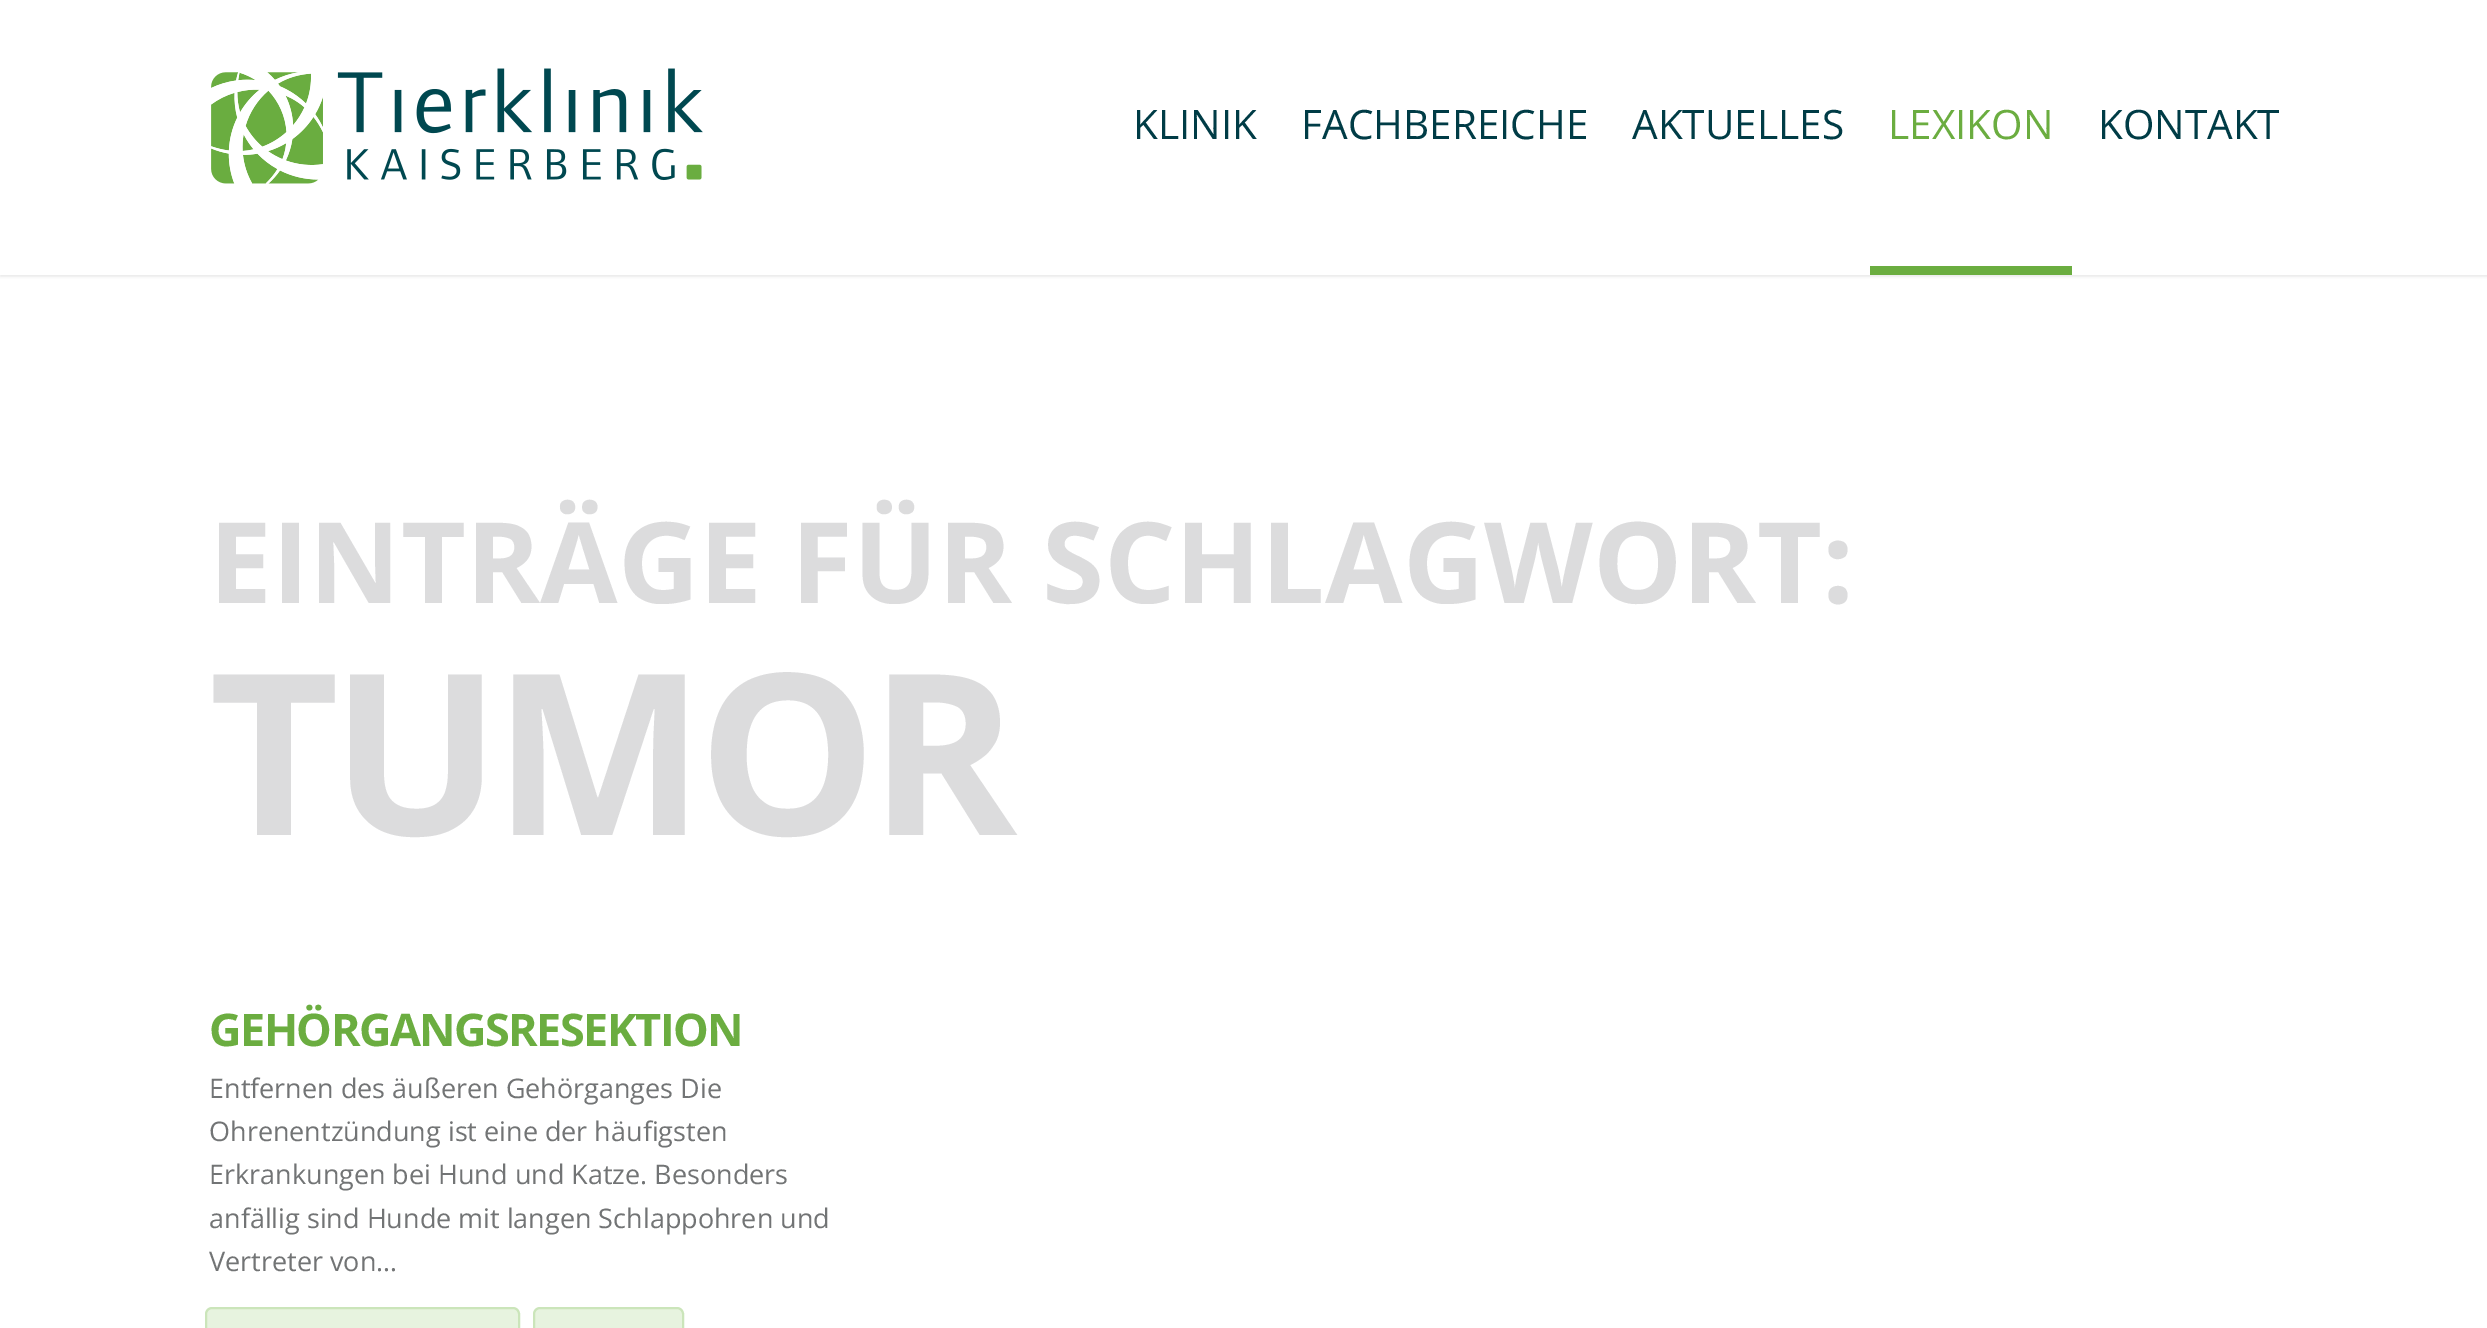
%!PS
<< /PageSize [2487 1328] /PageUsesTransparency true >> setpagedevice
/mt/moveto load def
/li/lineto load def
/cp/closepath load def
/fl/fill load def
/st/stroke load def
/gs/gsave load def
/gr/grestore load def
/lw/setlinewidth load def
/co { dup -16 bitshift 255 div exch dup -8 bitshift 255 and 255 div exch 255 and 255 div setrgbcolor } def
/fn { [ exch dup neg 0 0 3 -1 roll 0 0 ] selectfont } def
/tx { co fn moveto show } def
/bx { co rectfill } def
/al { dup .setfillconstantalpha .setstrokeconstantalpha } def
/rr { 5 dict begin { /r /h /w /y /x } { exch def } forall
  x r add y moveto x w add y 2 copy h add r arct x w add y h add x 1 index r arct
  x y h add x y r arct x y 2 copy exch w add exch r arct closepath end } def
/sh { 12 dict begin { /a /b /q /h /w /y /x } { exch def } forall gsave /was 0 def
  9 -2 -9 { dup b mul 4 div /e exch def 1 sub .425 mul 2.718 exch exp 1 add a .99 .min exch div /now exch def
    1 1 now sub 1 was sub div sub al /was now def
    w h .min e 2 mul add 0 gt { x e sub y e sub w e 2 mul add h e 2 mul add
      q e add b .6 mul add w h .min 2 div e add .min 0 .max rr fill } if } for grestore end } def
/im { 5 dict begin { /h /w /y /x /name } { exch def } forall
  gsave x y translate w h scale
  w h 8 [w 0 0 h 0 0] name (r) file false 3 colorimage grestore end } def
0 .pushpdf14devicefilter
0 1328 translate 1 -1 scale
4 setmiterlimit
0 0 2487 1328 16#FFFFFF bx
gs
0 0 mt 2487 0 li 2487 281 li 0 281 li cp 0 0 mt 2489 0 li 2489 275 li 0 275 li cp eoclip newpath
16#404040 co
0 2 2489 275 0 1 .1 sh
gr
(media/1.raw) 211 68 492 116 im
1870 266 202 9 16#6BAD40 bx
16#E7F3DF co
206 1308 313 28 6 rr gs fl gr
16#CBE5BA co
2 lw
st
16#E7F3DF co
534 1308 149 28 6 rr gs fl gr
16#CBE5BA co
st
(KLINIK) 1133 139 /OpenSans-Regular 40.5 16#003C46 tx
(FACHBEREICHE) 1301 139 /OpenSans-Regular 40.5 16#003C46 tx
(AKTUELLES) 1632 139 /OpenSans-Regular 40.5 16#003C46 tx
(LEXIKON) 1888 139 /OpenSans-Regular 40.5 16#6BAD40 tx
(KONTAKT) 2098 139 /OpenSans-Regular 40.5 16#003C46 tx
(EINTRÄGE FÜR SCHLAGWORT:) 209 603 /OpenSans-Bold 112.5 16#DCDCDD tx
/OpenSans-Bold 225 fn
209 835 mt -8 0 (TUMOR) ashow
/OpenSans-Bold 45 fn
16#6BAD40 co
209 1046 mt -1.6 0 (GEHÖRGANGSRESEKTION) ashow
(Entfernen des äußeren Gehörganges Die) 209 1098 /OpenSans-Regular 27 16#727475 tx
(Ohrenentzündung ist eine der häufigsten) 209 1141 /OpenSans-Regular 27 16#727475 tx
(Erkrankungen bei Hund und Katze. Besonders) 209 1184 /OpenSans-Regular 27 16#727475 tx
(anfällig sind Hunde mit langen Schlappohren und) 209 1228 /OpenSans-Regular 27 16#727475 tx
(Vertreter von…) 209 1271 /OpenSans-Regular 27 16#727475 tx
.poppdf14devicefilter showpage
